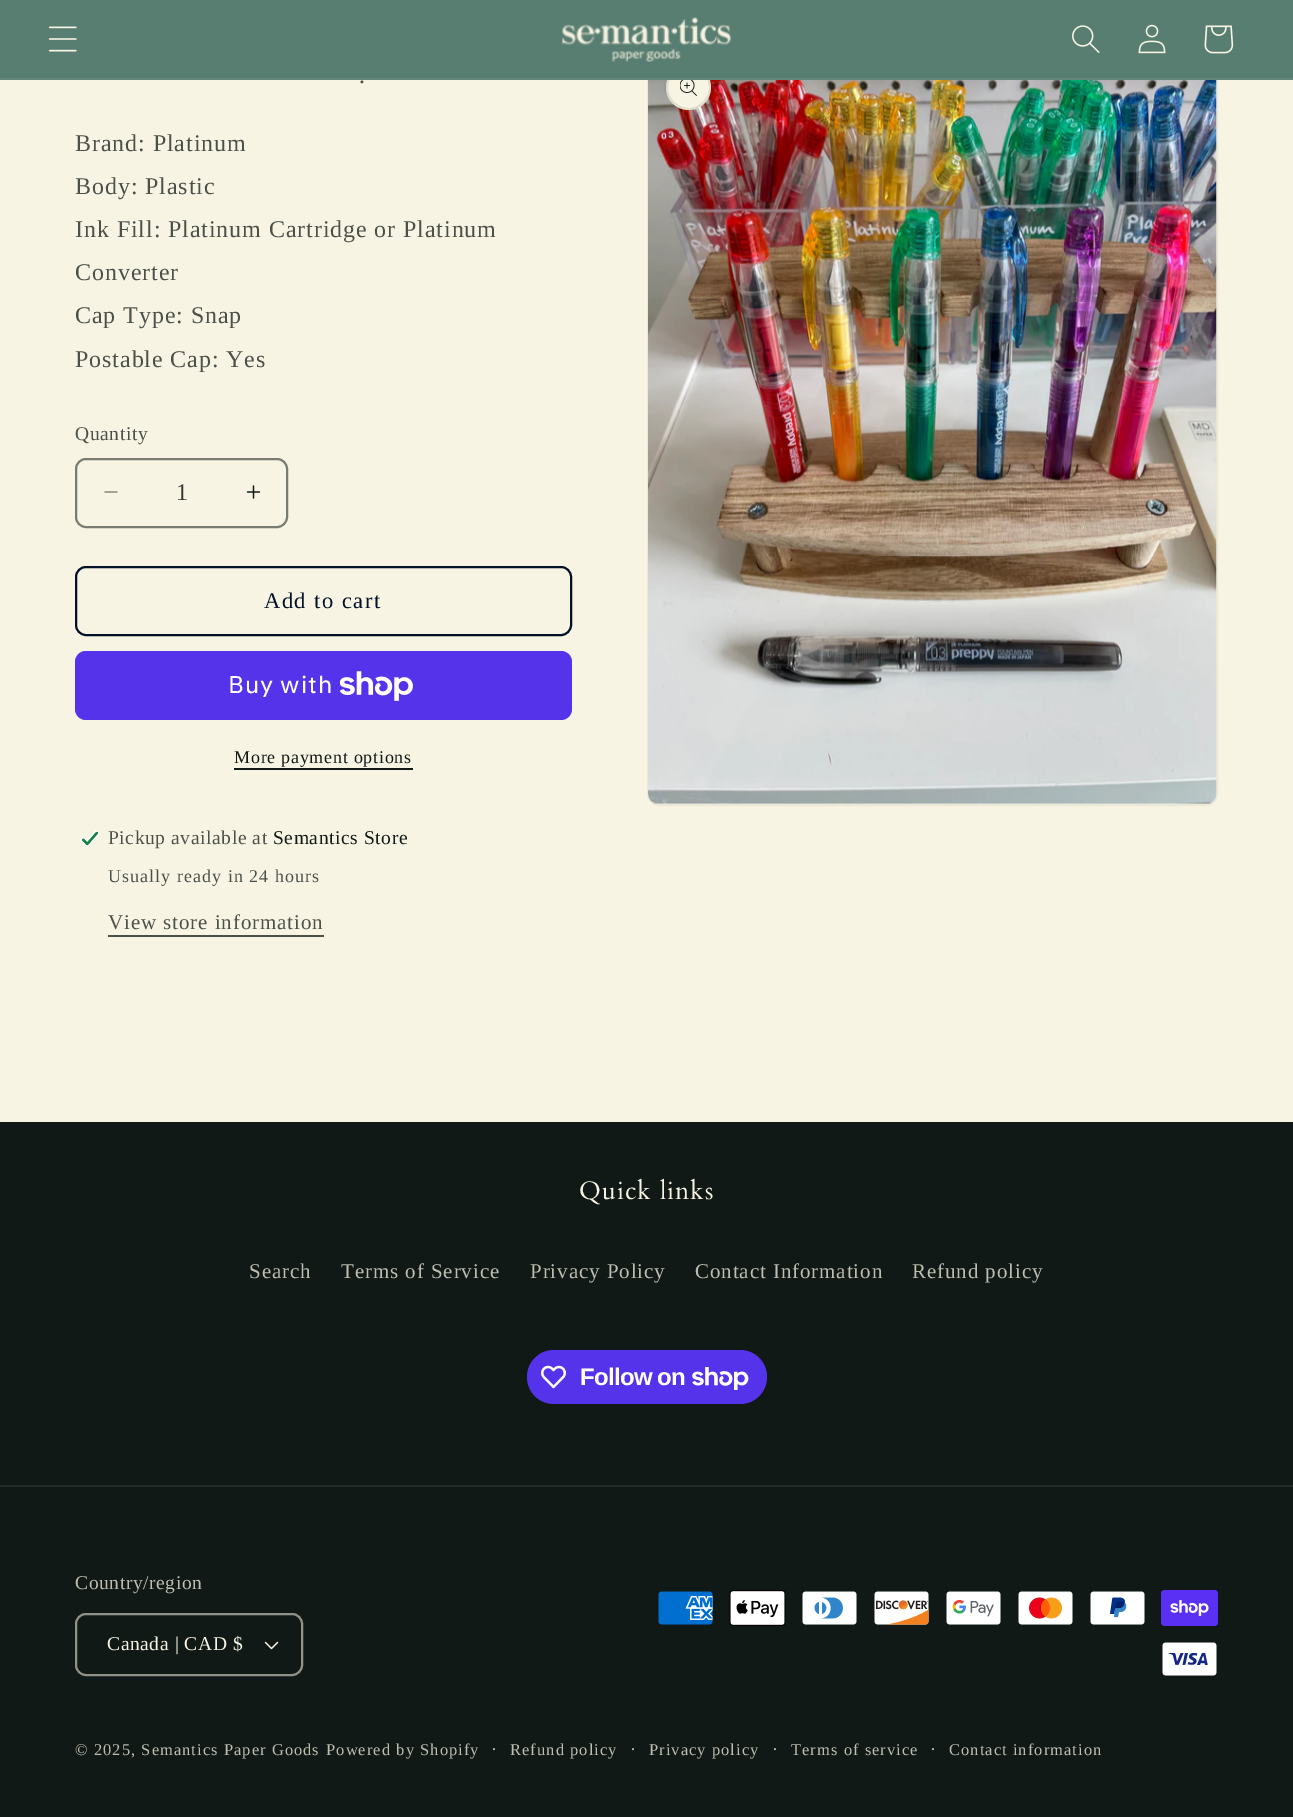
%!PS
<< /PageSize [1293 1817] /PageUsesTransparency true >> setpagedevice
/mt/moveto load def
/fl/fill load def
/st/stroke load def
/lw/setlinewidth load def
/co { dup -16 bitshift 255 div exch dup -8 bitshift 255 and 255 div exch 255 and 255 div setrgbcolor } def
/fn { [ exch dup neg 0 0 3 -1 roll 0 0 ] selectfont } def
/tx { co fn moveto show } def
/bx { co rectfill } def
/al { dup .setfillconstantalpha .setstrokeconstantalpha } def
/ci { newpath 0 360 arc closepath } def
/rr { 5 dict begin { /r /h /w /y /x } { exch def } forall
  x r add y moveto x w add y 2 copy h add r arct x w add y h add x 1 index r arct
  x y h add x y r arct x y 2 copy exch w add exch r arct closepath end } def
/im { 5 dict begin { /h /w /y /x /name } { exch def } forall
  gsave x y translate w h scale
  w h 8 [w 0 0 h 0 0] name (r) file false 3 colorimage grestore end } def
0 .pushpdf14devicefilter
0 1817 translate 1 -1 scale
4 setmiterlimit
0 0 1293 1817 16#F8F4E3 bx
16#ECE9D9 co
2 lw
648 46 569 759 11 rr st
(media/11.raw) 648 80 569 724 im
16#F8F4E3 co
688.5 87.5 22.5 ci fl
0.1 al
16#111916 co
688.5 87.5 21.5 ci st
1 al
0 0 1293 78 16#587D71 bx
0 78 1293 2 16#65877A bx
(media/1.raw) 48 26 29 26 im
(media/2.raw) 562 17 169 45 im
(media/3.raw) 1072 25 28 28 im
(media/4.raw) 1138 24 28 30 im
(media/5.raw) 1204 25 30 29 im
(media/6.raw) 104 491 14 2 im
(media/7.raw) 246 485 15 14 im
16#797C72 co
76 459 211 68 10 rr st
16#001128 co
76 567 495 68 10 rr st
16#5433EB co
75 651 497 69 11 rr fl
(media/8.raw) 339 671 74 30 im
234 768 179 2 16#111916 bx
(media/9.raw) 80 830 20 17 im
108 935 216 2 16#4B5049 bx
(media/10.raw) 680 80 17 16 im
0 1122 1293 695 16#111916 bx
16#5433EB co
527 1350 240 54 27 rr fl
(media/12.raw) 541 1365 25 24 im
(media/13.raw) 692 1367 57 23 im
0 1485 1293 2 16#232B26 bx
(media/14.raw) 264 1641 15 9 im
16#909187 co
76 1614 226 61 10 rr st
(media/15.raw) 658 1591 55 34 im
(media/16.raw) 729 1590 57 36 im
(media/17.raw) 802 1591 55 34 im
(media/18.raw) 874 1591 55 34 im
(media/19.raw) 946 1591 55 34 im
(media/20.raw) 1018 1591 55 34 im
(media/21.raw) 1090 1591 55 34 im
(media/22.raw) 1161 1590 57 36 im
(media/23.raw) 1162 1642 55 34 im
/LiberationSerif-Regular 24 fn
16#4B5049 co
359 83 mt .9 0 (.) ashow
75 151 mt .9 0 (Brand: Platinum) ashow
75 194 mt .9 0 (Body: Plastic) ashow
75 237 mt .9 0 (Ink Fill: Platinum Cartridge or Platinum) ashow
75 280 mt .9 0 (Converter) ashow
75 323 mt .9 0 (Cap Type: Snap) ashow
75 367 mt .9 0 (Postable Cap: Yes) ashow
/LiberationSerif-Regular 19.5 fn
75 440 mt .6 0 (Quantity) ashow
(1) 176 500 /LiberationSerif-Regular 24 16#343A35 tx
/LiberationSerif-Regular 22.5 fn
16#001128 co
264 608 mt 1.5 0 (Add to cart) ashow
/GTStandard-Regular 24 fn
16#FFFFFF co
228 693 mt .9 0 (Buy with) ashow
/LiberationSerif-Regular 18 fn
16#111916 co
234 763 mt .75 0 (More payment options) ashow
/LiberationSerif-Regular 19.5 fn
16#4B5049 co
108 844 mt .6 0 (Pickup available at) ashow
16#111916 co
273 844 mt .6 0 (Semantics Store) ashow
/LiberationSerif-Regular 18 fn
16#4B5049 co
108 882 mt 1.05 0 (Usually ready in 24 hours) ashow
/LiberationSerif-Regular 21 fn
108 929 mt .9 0 (View store information) ashow
/Cardo-Regular 25.25 fn
16#F8F4E3 co
579 1199 mt 1 0 (Quick links) ashow
/LiberationSerif-Regular 21 fn
16#BEBDB0 co
249 1278 mt .9 0 (Search) ashow
341 1278 mt .9 0 (Terms of Service) ashow
530 1278 mt .9 0 (Privacy Policy) ashow
695 1278 mt .9 0 (Contact Information) ashow
912 1278 mt .9 0 (Refund policy) ashow
/LiberationSans-Bold 24 fn
16#FFFFFF co
580 1385 mt -.75 0 (Follow on) ashow
/LiberationSerif-Regular 19.5 fn
16#BEBDB0 co
75 1589 mt .6 0 (Country/region) ashow
16#F8F4E3 co
107 1650 mt .6 0 (Canada | CAD $) ashow
/LiberationSerif-Regular 16.5 fn
16#BEBDB0 co
75 1755 mt 1.05 0 (© 2025, Semantics Paper Goods) ashow
326 1755 mt 1.05 0 (Powered by Shopify) ashow
/LiberationSerif-Regular 18 fn
491 1755 mt 1.05 0 (·) ashow
/LiberationSerif-Regular 16.5 fn
510 1755 mt 1.05 0 (Refund policy) ashow
/LiberationSerif-Regular 18 fn
630 1755 mt 1.05 0 (·) ashow
/LiberationSerif-Regular 16.5 fn
649 1755 mt 1.05 0 (Privacy policy) ashow
/LiberationSerif-Regular 18 fn
772 1755 mt 1.05 0 (·) ashow
/LiberationSerif-Regular 16.5 fn
791 1755 mt 1.05 0 (Terms of service) ashow
/LiberationSerif-Regular 18 fn
930 1755 mt 1.05 0 (·) ashow
/LiberationSerif-Regular 16.5 fn
949 1755 mt 1.05 0 (Contact information) ashow
.poppdf14devicefilter showpage
